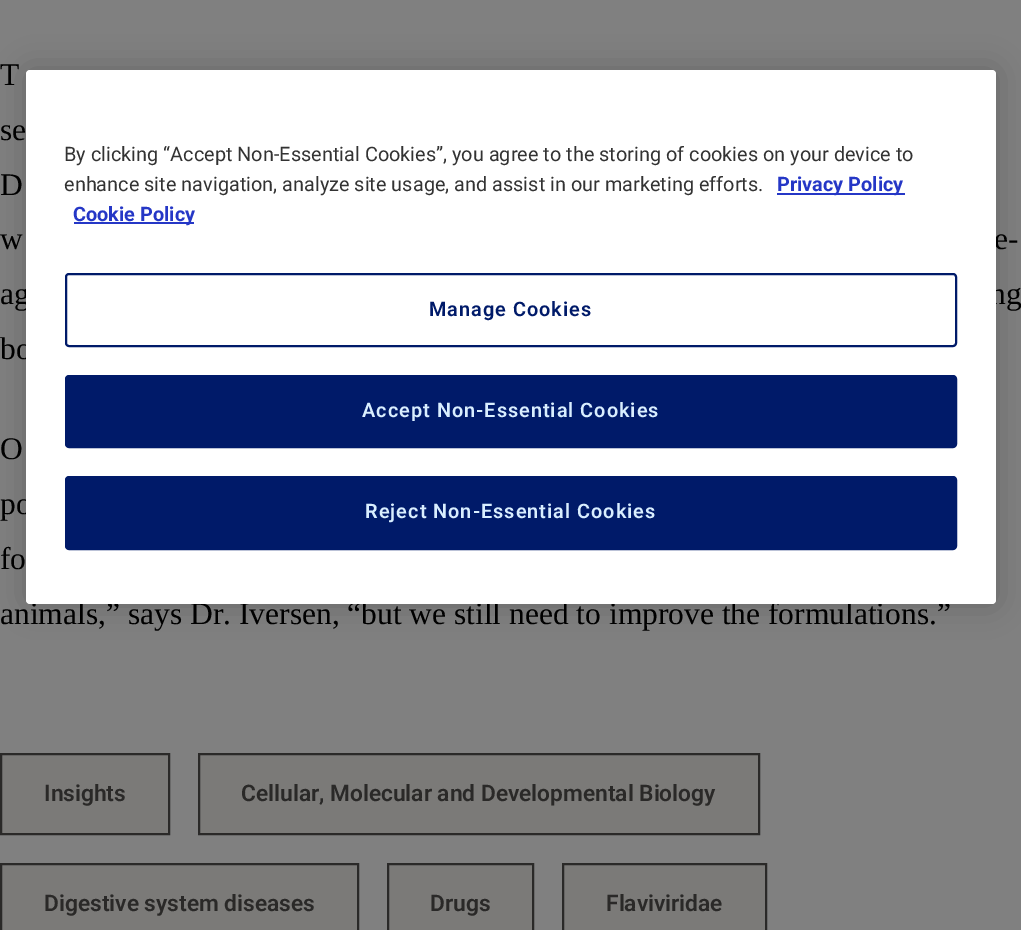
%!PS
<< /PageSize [1021 930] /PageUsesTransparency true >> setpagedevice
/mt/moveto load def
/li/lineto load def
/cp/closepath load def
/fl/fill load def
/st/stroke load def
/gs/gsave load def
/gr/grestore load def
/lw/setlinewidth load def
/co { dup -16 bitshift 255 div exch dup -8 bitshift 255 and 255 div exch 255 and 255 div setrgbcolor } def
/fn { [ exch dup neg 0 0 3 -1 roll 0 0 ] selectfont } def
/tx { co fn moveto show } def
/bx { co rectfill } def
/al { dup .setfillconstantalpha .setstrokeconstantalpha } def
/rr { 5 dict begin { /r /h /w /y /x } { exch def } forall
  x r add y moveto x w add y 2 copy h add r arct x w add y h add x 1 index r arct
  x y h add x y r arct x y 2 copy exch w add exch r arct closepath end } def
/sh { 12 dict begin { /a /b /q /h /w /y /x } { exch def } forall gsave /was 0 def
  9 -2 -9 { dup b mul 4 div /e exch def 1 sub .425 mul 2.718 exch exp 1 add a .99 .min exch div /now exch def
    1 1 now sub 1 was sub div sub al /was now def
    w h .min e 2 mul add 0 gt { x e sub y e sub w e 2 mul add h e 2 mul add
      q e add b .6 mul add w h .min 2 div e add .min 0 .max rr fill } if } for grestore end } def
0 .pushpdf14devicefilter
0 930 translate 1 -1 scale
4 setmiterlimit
0 0 1021 930 16#808080 bx
16#7B7A78 co
1 754 mt 169 754 li 169 834 li 1 834 li cp gs fl gr
16#2A2928 co
2 lw
st
16#7B7A78 co
199 754 mt 759 754 li 759 834 li 199 834 li cp gs fl gr
16#2A2928 co
st
16#7B7A78 co
1 864 mt 358 864 li 358 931 li 1 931 li cp gs fl gr
16#2A2928 co
st
16#7B7A78 co
388 864 mt 533 864 li 533 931 li 388 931 li cp gs fl gr
16#2A2928 co
st
16#7B7A78 co
563 864 mt 766 864 li 766 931 li 563 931 li cp gs fl gr
16#2A2928 co
st
16#000000 co
26 70 970 534 4 16 .2 sh
(T) 0 85 /LiberationSerif-Regular 31.5 16#000000 tx
(se) 0 140 /LiberationSerif-Regular 31.5 16#000000 tx
(D) 0 195 /LiberationSerif-Regular 31.5 16#000000 tx
(w) 0 249 /LiberationSerif-Regular 31.5 16#000000 tx
(e-) 994 249 /LiberationSerif-Regular 31.5 16#000000 tx
(ag) 0 304 /LiberationSerif-Regular 31.5 16#000000 tx
(ng) 990 304 /LiberationSerif-Regular 31.5 16#000000 tx
(bo) 0 359 /LiberationSerif-Regular 31.5 16#000000 tx
(O) 0 459 /LiberationSerif-Regular 31.5 16#000000 tx
(po) 0 514 /LiberationSerif-Regular 31.5 16#000000 tx
(fo) 0 569 /LiberationSerif-Regular 31.5 16#000000 tx
(animals,” says Dr. Iversen, “but we still need to improve the formulations.”) 0 624 /LiberationSerif-Regular 31.5 16#000000 tx
(Insights) 44 801 /Roboto-SemiBold 22.75 16#2A2928 tx
(Cellular, Molecular and Developmental Biology) 241 801 /Roboto-SemiBold 22.75 16#2A2928 tx
(Digestive system diseases) 44 911 /Roboto-SemiBold 22.75 16#2A2928 tx
(Drugs) 430 911 /Roboto-SemiBold 22.75 16#2A2928 tx
(Flaviviridae) 606 911 /Roboto-SemiBold 22.75 16#2A2928 tx
16#FFFFFF co
26 70 970 534 4 rr fl
(By clicking “Accept Non-Essential Cookies”, you agree to the storing of cookies on your device to) 64 161 /Roboto-Regular 19.9 16#333333 tx
(enhance site navigation, analyze site usage, and assist in our marketing efforts.) 64 191 /Roboto-Regular 19.9 16#333333 tx
777 193 128 2 16#2537C6 bx
(Privacy Policy) 777 191 /Roboto-Bold 19.9 16#2537C6 tx
74 222 120 2 16#2537C6 bx
(Cookie Policy) 73 221 /Roboto-Bold 19.9 16#2537C6 tx
16#001A69 co
66 274 890 72 3 rr st
/Roboto-SemiBold 19.9 fn
429 316 mt 1 0 (Manage Cookies) ashow
66 376 890 71 3 rr gs fl gr
st
16#D9EEFF co
362 417 mt 1 0 (Accept Non-Essential Cookies) ashow
16#001A69 co
66 477 890 72 3 rr gs fl gr
st
16#D9EEFF co
365 518 mt 1 0 (Reject Non-Essential Cookies) ashow
.poppdf14devicefilter showpage
